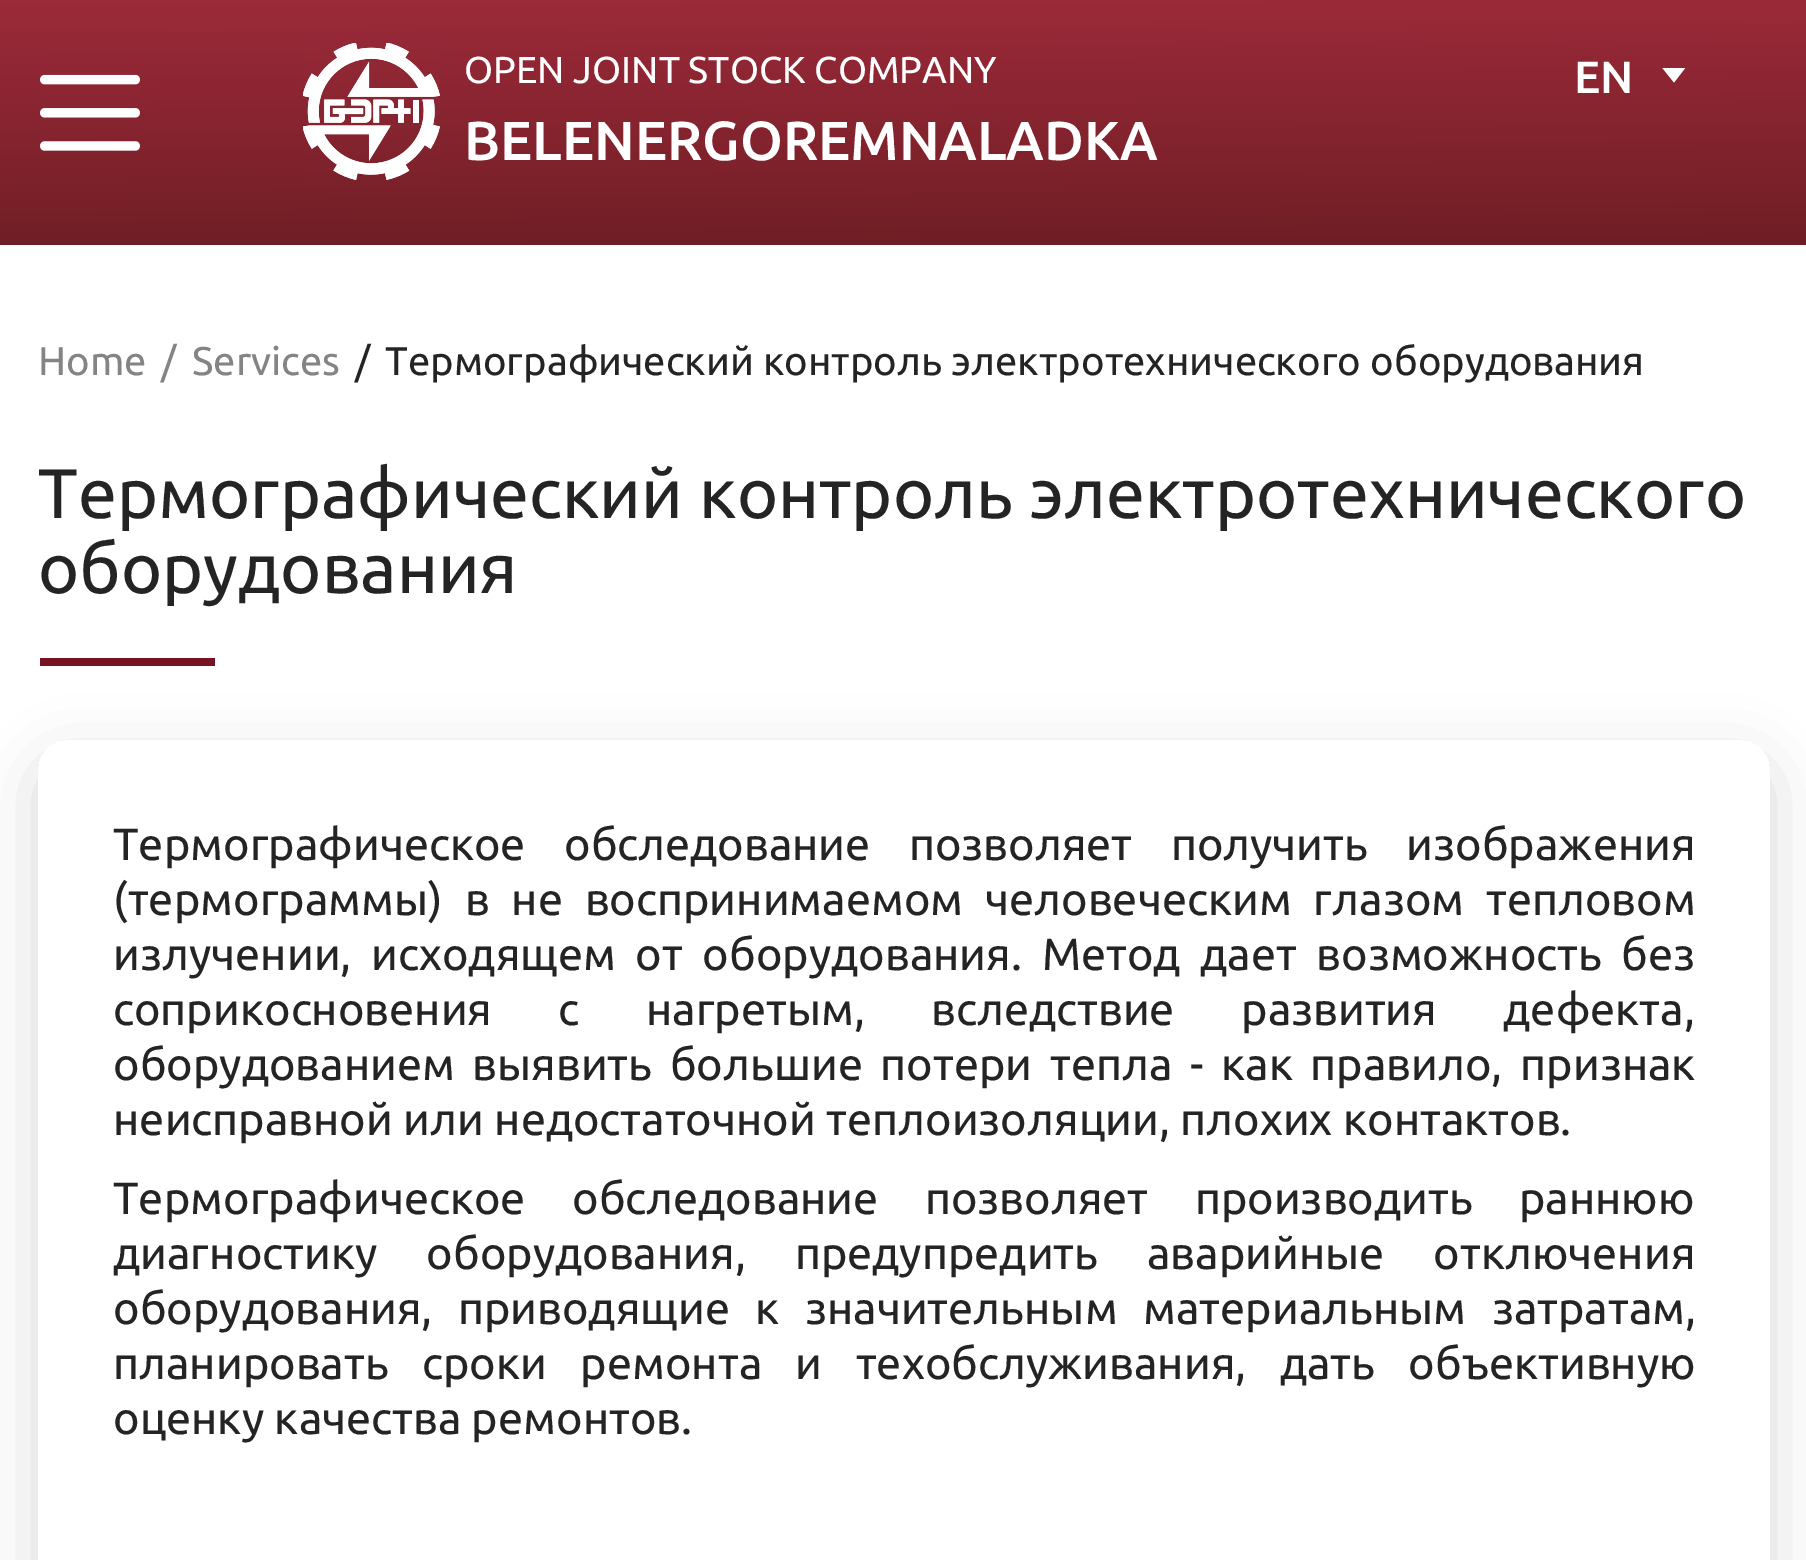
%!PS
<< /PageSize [1806 1560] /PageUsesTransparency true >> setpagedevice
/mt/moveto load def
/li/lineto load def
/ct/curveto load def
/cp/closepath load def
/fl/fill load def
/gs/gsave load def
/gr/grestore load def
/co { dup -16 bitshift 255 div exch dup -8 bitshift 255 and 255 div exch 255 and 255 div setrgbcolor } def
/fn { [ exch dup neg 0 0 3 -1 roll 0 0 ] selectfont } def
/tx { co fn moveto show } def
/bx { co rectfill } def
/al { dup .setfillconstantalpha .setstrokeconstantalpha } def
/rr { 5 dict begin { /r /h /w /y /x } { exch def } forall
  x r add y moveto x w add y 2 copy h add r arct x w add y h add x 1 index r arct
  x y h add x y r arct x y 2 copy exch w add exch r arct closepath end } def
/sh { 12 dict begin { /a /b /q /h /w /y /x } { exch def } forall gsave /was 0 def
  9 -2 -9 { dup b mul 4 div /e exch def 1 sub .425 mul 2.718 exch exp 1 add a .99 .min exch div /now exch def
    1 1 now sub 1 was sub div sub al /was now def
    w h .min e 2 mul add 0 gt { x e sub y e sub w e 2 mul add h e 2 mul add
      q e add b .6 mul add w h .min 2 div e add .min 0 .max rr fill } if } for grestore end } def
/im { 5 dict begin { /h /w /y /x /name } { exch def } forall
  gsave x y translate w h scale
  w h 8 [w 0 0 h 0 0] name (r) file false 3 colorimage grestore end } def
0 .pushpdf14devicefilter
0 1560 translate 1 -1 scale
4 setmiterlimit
0 0 1806 1560 16#FFFFFF bx
gs 0 0 mt 1806 0 li 1806 245 li 0 245 li cp clip newpath
<< /ShadingType 2 /ColorSpace /DeviceRGB /Coords [903 -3.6 905 389] /Extend [true true] /Function << /FunctionType 3 /Domain [0 1] /Functions [<< /FunctionType 2 /Domain [0 1] /C0 [.612 .165 .224] /C1 [.612 .165 .224] /N 1 >> << /FunctionType 2 /Domain [0 1] /C0 [.612 .165 .224] /C1 [.337 .09 .102] /N 1 >>] /Bounds [.01] /Encode [0 1 0 1] >> >> shfill gr
(media/1.raw) 40 74 100 77 im
(media/2.raw) 303 43 137 137 im
gs
1660 68 28 15 rectclip
1674 82.5 mt 1685.5 67.5 li 1662 67.5 li cp fl
gr
40 658 175 8 16#771424 bx
gs
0 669 mt 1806 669 li 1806 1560 li 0 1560 li cp 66 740 mt 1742 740 li 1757.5 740 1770 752.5 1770 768 ct 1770 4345 li 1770 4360.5 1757.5 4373 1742 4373 ct 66 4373 li 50.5 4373 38 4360.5 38 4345 ct 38 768 li 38 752.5 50.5 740 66 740 ct cp eoclip newpath
16#000000 co
38 760 1732 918 28 30 .15 sh
gr
(OPEN JOINT STOСK COMPANY) 464 83 /Ubuntu-Regular 37.5 16#FFFFFF tx
(BELENERGOREMNALADKA) 464 160 /Ubuntu-Medium 55 16#FFFFFF tx
(EN) 1574 93 /Ubuntu-Medium 45 16#FFFFFF tx
(Home) 38 375 /Ubuntu-Regular 40 16#848484 tx
(/) 161 375 /Ubuntu-Regular 40 16#848484 tx
(Services) 192 375 /Ubuntu-Regular 40 16#848484 tx
(/) 355 375 /Ubuntu-Regular 40 16#242424 tx
(Термографический контроль электротехнического оборудования) 385 375 /Ubuntu-Regular 40 16#242424 tx
(Термографический контроль электротехнического) 38 518 /Ubuntu-Regular 70 16#242424 tx
(оборудования) 38 593 /Ubuntu-Regular 70 16#242424 tx
/Ubuntu-Regular 45 fn
113 860 mt 28 0 32 (Термографическое обследование позволяет получить изображения) widthshow
113 915 mt 11.5 0 32 (\(термограммы\) в не воспринимаемом человеческим глазом тепловом) widthshow
113 970 mt 9.25 0 32 (излучении, исходящем от оборудования. Метод дает возможность без) widthshow
113 1025 mt 56 0 32 (соприкосновения с нагретым, вследствие развития дефекта,) widthshow
113 1080 mt 7.25 0 32 (оборудованием выявить большие потери тепла - как правило, признак) widthshow
(неисправной или недостаточной теплоизоляции, плохих контактов.) 113 1135 /Ubuntu-Regular 45 16#242424 tx
113 1214 mt 36 0 32 (Термографическое обследование позволяет производить раннюю) widthshow
113 1269 mt 38.5 0 32 (диагностику оборудования, предупредить аварийные отключения) widthshow
113 1324 mt 15 0 32 (оборудования, приводящие к значительным материальным затратам,) widthshow
113 1379 mt 23 0 32 (планировать сроки ремонта и техобслуживания, дать объективную) widthshow
(оценку качества ремонтов.) 113 1434 /Ubuntu-Regular 45 16#242424 tx
.poppdf14devicefilter showpage
